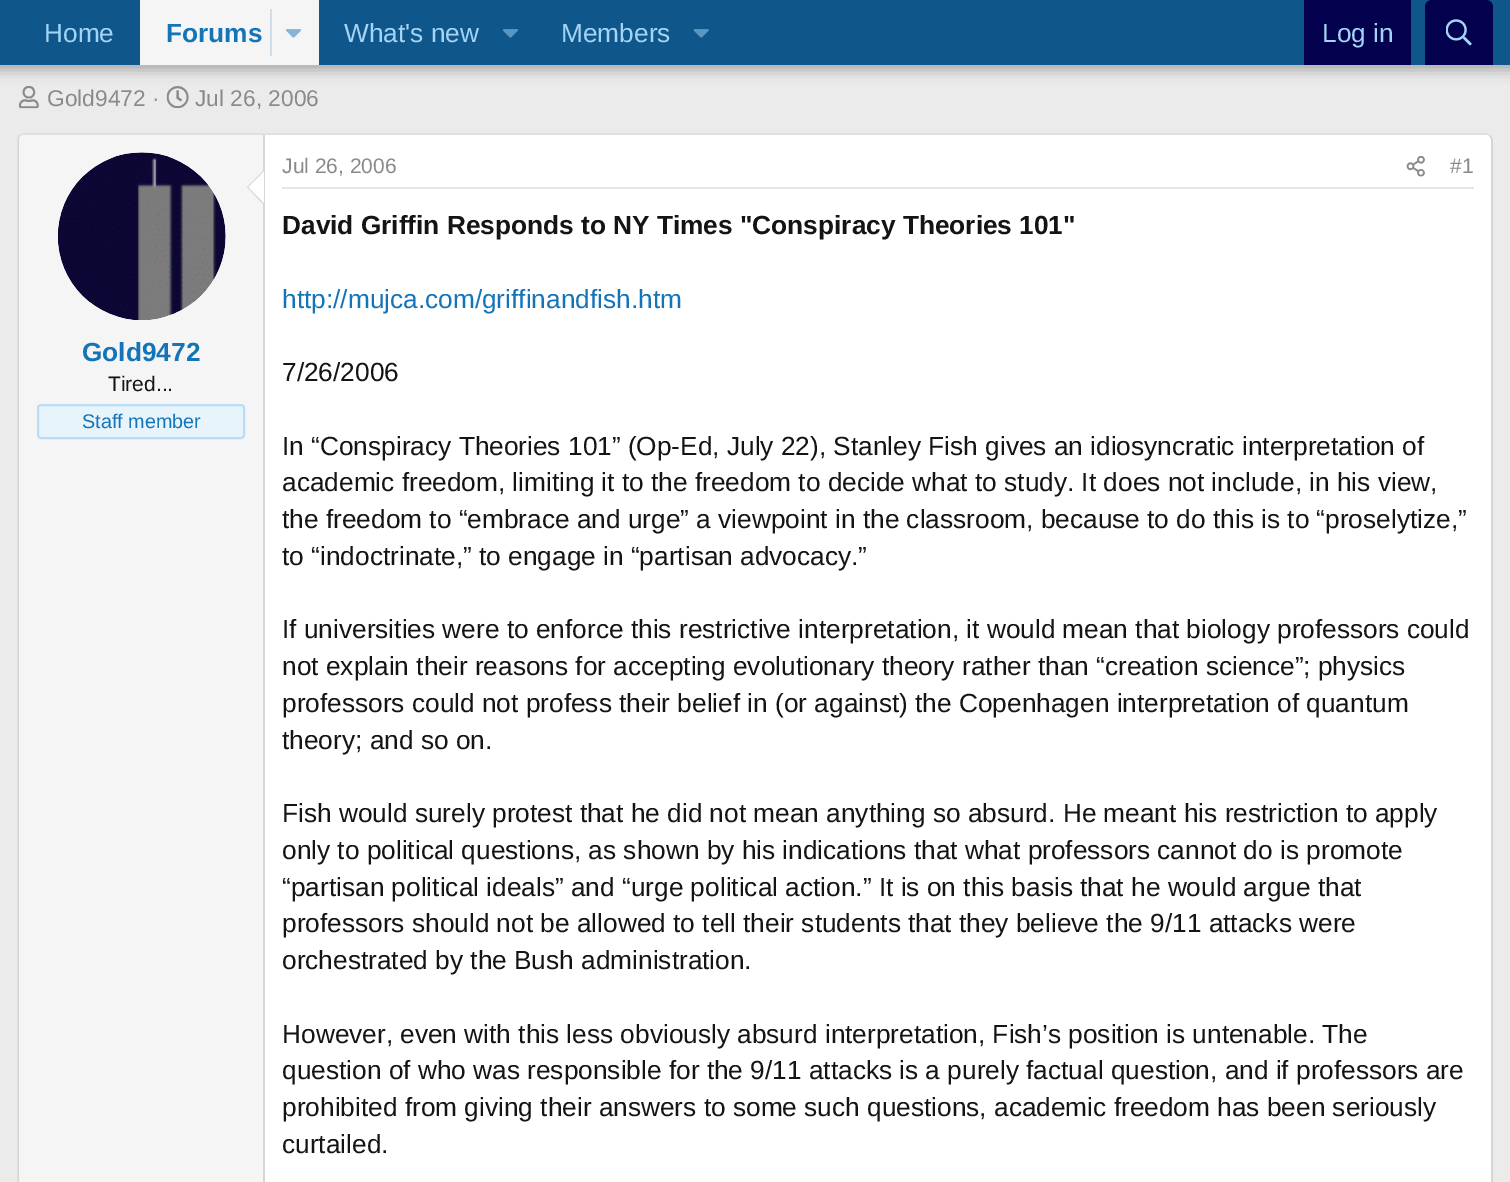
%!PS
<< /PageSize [1510 1182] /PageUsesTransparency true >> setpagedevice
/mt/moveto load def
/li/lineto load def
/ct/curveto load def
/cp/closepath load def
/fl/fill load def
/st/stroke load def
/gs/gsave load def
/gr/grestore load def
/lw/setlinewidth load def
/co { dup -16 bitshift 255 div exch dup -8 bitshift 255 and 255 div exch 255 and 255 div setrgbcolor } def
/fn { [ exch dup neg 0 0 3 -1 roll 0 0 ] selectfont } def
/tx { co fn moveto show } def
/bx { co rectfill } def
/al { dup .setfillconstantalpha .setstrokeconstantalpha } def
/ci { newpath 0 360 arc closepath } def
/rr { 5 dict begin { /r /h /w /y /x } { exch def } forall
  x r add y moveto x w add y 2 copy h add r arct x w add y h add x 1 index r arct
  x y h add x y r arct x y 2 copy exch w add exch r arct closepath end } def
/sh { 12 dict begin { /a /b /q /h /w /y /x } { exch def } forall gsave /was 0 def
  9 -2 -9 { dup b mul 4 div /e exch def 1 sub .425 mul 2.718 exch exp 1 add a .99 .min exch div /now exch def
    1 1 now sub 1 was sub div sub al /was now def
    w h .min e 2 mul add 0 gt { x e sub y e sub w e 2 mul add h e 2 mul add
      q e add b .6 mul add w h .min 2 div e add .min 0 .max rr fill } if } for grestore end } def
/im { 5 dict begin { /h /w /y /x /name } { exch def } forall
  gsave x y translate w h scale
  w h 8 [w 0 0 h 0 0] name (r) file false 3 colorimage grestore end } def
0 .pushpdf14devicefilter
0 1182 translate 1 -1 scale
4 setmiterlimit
0 0 1510 1182 16#EBEBEB bx
(media/5.raw) 18 86 21 23 im
(media/6.raw) 166 86 23 23 im
16#000000 co
-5 -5 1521 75 0 7 .3 sh
0 0 1510 65 16#0F578A bx
140 0 179 65 16#F5F5F5 bx
270 9 2 47 16#CEDFEB bx
(media/1.raw) 285 29 16 9 im
(media/2.raw) 502 29 16 9 im
(media/3.raw) 693 29 16 9 im
1304 0 107 65 16#03004D bx
1432 0 mt 1486 0 li 1490 0 1493 3 1493 7 ct 1493 65 li 1425 65 li 1425 7 li 1425 3 1428 0 1432 0 ct cp fl
(media/4.raw) 1446 19 26 27 im
16#FFFFFF co
18 133 1475 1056 7 rr fl
16#E0E0E0 co
1.8 lw
20 135.5 mt 21.5 134.5 23 134 24.5 134 ct 1486 134 li 1487.5 134 1489 134.5 1490 135.5 ct st
16#D6D6D6 co
1490 135.5 mt 1491 137 1492 138.5 1492 140 ct 1492 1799 li 1492 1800.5 1491 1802 1490 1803.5 ct st
20 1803.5 mt 19 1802 18.5 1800.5 18.5 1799 ct 18.5 140 li 18.5 138.5 19 137 20 135.5 ct st
16#F5F5F5 co
24 135 mt 264 135 li 264 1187 li 24 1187 li 21 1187 19 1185 19 1182 ct 19 140 li 19 137 21 135 24 135 ct cp fl
263 135 2 1047 16#D6D6D6 bx
16#FFFFFF co
142 236 84 ci fl
(media/7.raw) 58 152 168 168 im
16#D6D6D6 co
264 170 mt 264 205 li 247 187 li cp fl
16#FFFFFF co
264 171.5 mt 264 203 li 248.5 187 li cp fl
16#E8F4FC co
38 405 206 33 3 rr gs fl gr
16#BADDF7 co
2 lw
st
282 187 1192 2 16#E6E6E6 bx
(media/8.raw) 1406 156 19 21 im
(Home) 44 42 /LiberationSans-Regular 26.25 16#A3D4F5 tx
(Forums) 166 42 /LiberationSans-Bold 26.25 16#1474B8 tx
(What's new) 344 42 /LiberationSans-Regular 26.25 16#A3D4F5 tx
(Members) 561 42 /LiberationSans-Regular 26.25 16#A3D4F5 tx
(Log in) 1322 42 /LiberationSans-Regular 26.25 16#A3D4F5 tx
(Gold9472 ·) 47 106 /LiberationSans-Regular 22.75 16#8A8A8A tx
(Jul 26, 2006) 195 106 /LiberationSans-Regular 22.75 16#8A8A8A tx
(Gold9472) 82 361 /LiberationSans-Bold 26.25 16#1474B8 tx
(Tired...) 108 391 /LiberationSans-Regular 21 16#141414 tx
(Staff member) 82 428 /LiberationSans-Regular 19.75 16#1474B8 tx
(Jul 26, 2006) 282 173 /LiberationSans-Regular 21 16#8A8A8A tx
(#1) 1450 173 /LiberationSans-Regular 21 16#8A8A8A tx
(David Griffin Responds to NY Times "Conspiracy Theories 101") 282 234 /LiberationSans-Bold 26.25 16#141414 tx
(http://mujca.com/griffinandfish.htm) 282 308 /LiberationSans-Regular 26.25 16#1474B8 tx
(7/26/2006) 282 381 /LiberationSans-Regular 26.25 16#141414 tx
(In “Conspiracy Theories 101” \(Op-Ed, July 22\), Stanley Fish gives an idiosyncratic interpretation of) 282 455 /LiberationSans-Regular 26.25 16#141414 tx
(academic freedom, limiting it to the freedom to decide what to study. It does not include, in his view,) 282 491 /LiberationSans-Regular 26.25 16#141414 tx
(the freedom to “embrace and urge” a viewpoint in the classroom, because to do this is to “proselytize,”) 282 528 /LiberationSans-Regular 26.25 16#141414 tx
(to “indoctrinate,” to engage in “partisan advocacy.”) 282 565 /LiberationSans-Regular 26.25 16#141414 tx
(If universities were to enforce this restrictive interpretation, it would mean that biology professors could) 282 638 /LiberationSans-Regular 26.25 16#141414 tx
(not explain their reasons for accepting evolutionary theory rather than “creation science”; physics) 282 675 /LiberationSans-Regular 26.25 16#141414 tx
(professors could not profess their belief in \(or against\) the Copenhagen interpretation of quantum) 282 712 /LiberationSans-Regular 26.25 16#141414 tx
(theory; and so on.) 282 749 /LiberationSans-Regular 26.25 16#141414 tx
(Fish would surely protest that he did not mean anything so absurd. He meant his restriction to apply) 282 822 /LiberationSans-Regular 26.25 16#141414 tx
(only to political questions, as shown by his indications that what professors cannot do is promote) 282 859 /LiberationSans-Regular 26.25 16#141414 tx
(“partisan political ideals” and “urge political action.” It is on this basis that he would argue that) 282 896 /LiberationSans-Regular 26.25 16#141414 tx
(professors should not be allowed to tell their students that they believe the 9/11 attacks were) 282 932 /LiberationSans-Regular 26.25 16#141414 tx
(orchestrated by the Bush administration.) 282 969 /LiberationSans-Regular 26.25 16#141414 tx
(However, even with this less obviously absurd interpretation, Fish’s position is untenable. The) 282 1043 /LiberationSans-Regular 26.25 16#141414 tx
(question of who was responsible for the 9/11 attacks is a purely factual question, and if professors are) 282 1079 /LiberationSans-Regular 26.25 16#141414 tx
(prohibited from giving their answers to some such questions, academic freedom has been seriously) 282 1116 /LiberationSans-Regular 26.25 16#141414 tx
(curtailed.) 282 1153 /LiberationSans-Regular 26.25 16#141414 tx
.poppdf14devicefilter showpage
